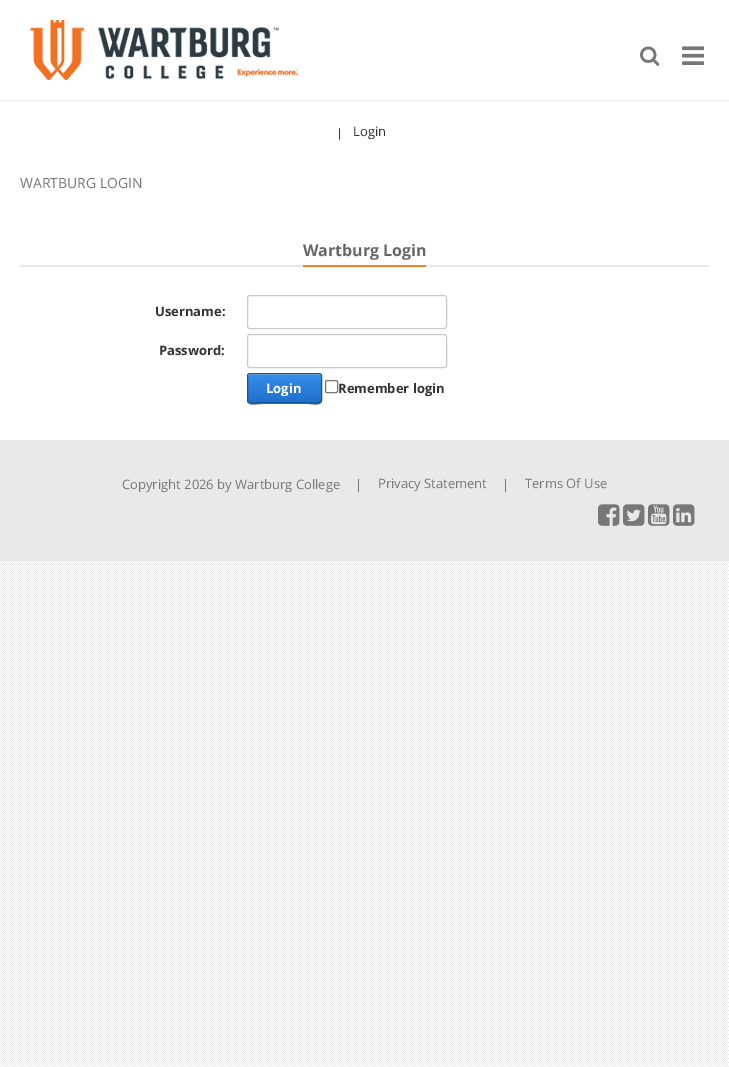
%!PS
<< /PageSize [729 1067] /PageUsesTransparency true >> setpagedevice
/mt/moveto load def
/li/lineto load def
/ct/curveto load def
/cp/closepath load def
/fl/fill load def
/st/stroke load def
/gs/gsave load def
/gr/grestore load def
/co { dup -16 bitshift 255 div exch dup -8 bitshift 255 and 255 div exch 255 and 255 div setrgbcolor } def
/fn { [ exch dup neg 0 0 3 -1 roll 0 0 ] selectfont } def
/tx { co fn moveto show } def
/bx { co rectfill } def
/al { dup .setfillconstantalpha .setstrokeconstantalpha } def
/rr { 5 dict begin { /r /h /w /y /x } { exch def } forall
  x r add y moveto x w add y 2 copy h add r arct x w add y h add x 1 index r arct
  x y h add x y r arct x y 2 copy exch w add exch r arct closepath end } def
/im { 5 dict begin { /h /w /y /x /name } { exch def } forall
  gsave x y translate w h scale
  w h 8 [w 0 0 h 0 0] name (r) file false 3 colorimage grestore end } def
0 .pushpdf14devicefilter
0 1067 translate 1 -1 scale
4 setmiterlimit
0 0 729 1067 16#FFFFFF bx
(media/1.raw) 0 561 729 506 im
0 100 729 1 16#EAEAEA bx
(media/2.raw) 30 20 268 60 im
(media/3.raw) 640 46 19 20 im
(media/4.raw) 682 46 22 19 im
20 265 689 2 16#E8E8E8 bx
303 265 123 2 16#F58025 bx
16#C9C9C9 co
247.5 295.5 199 33 2.5 rr st
247.5 334.5 199 33 2.5 rr st
16#666666 co
247 400 mt 247 407 257 404 262 404 ct 308 404 li 312 404 322 407 322 400 ct 322 402 321 403 319 403 ct 250 403 li 248 403 247 402 247 400 ct cp fl
gs
247 373 75 30 3 rr clip newpath
gs 247 374 mt 322 374 li 322 402 li 247 402 li cp clip newpath
<< /ShadingType 2 /ColorSpace /DeviceRGB /Coords [285 374 285 402] /Extend [true true] /Function << /FunctionType 2 /Domain [0 1] /C0 [.208 .557 .918] /C1 [.129 .439 .804] /N 1 >> >> shfill gr
gr
0.4 al
16#FFFFFF co
250 375 mt 319 375 li 320 375 321 376 321 377 ct 321 371 311 374 308 374 ct 262 374 li 258 374 248 371 248 377 ct 248 376 249 375 250 375 ct cp fl
1 al
16#0D569E co
247.5 373.5 74 29 2.5 rr st
16#767676 co
325.5 380.5 12 12 1.5 rr st
0 440 729 121 16#E9E9E9 bx
(media/5.raw) 598 504 22 22 im
(media/6.raw) 623 504 22 22 im
(media/7.raw) 648 504 22 22 im
(media/8.raw) 673 504 22 22 im
(|) 338 137 /LiberationSans-Regular 12 16#333333 tx
(Login) 353 136 /OpenSans-Regular 13 16#333333 tx
(WARTBURG LOGIN) 20 188 /OpenSans-Regular 14 16#777777 tx
(Wartburg Login) 303 256 /OpenSans-Bold 16 16#666666 tx
(Username:) 155 316 /OpenSans-Bold 13 16#333333 tx
(Password:) 159 355 /OpenSans-Bold 13 16#333333 tx
(Login) 266 393 /OpenSans-Bold 13 16#FFFFFF tx
(Remember login) 338 393 /OpenSans-Bold 13 16#333333 tx
(Copyright 2026 by Wartburg College) 122 489 /OpenSans-Regular 13 16#777777 tx
(|) 355 489 /OpenSans-Regular 13 16#777777 tx
(Privacy Statement) 378 488 /OpenSans-Regular 13 16#777777 tx
(|) 502 489 /OpenSans-Regular 13 16#777777 tx
(Terms Of Use) 525 488 /OpenSans-Regular 13 16#777777 tx
.poppdf14devicefilter showpage
